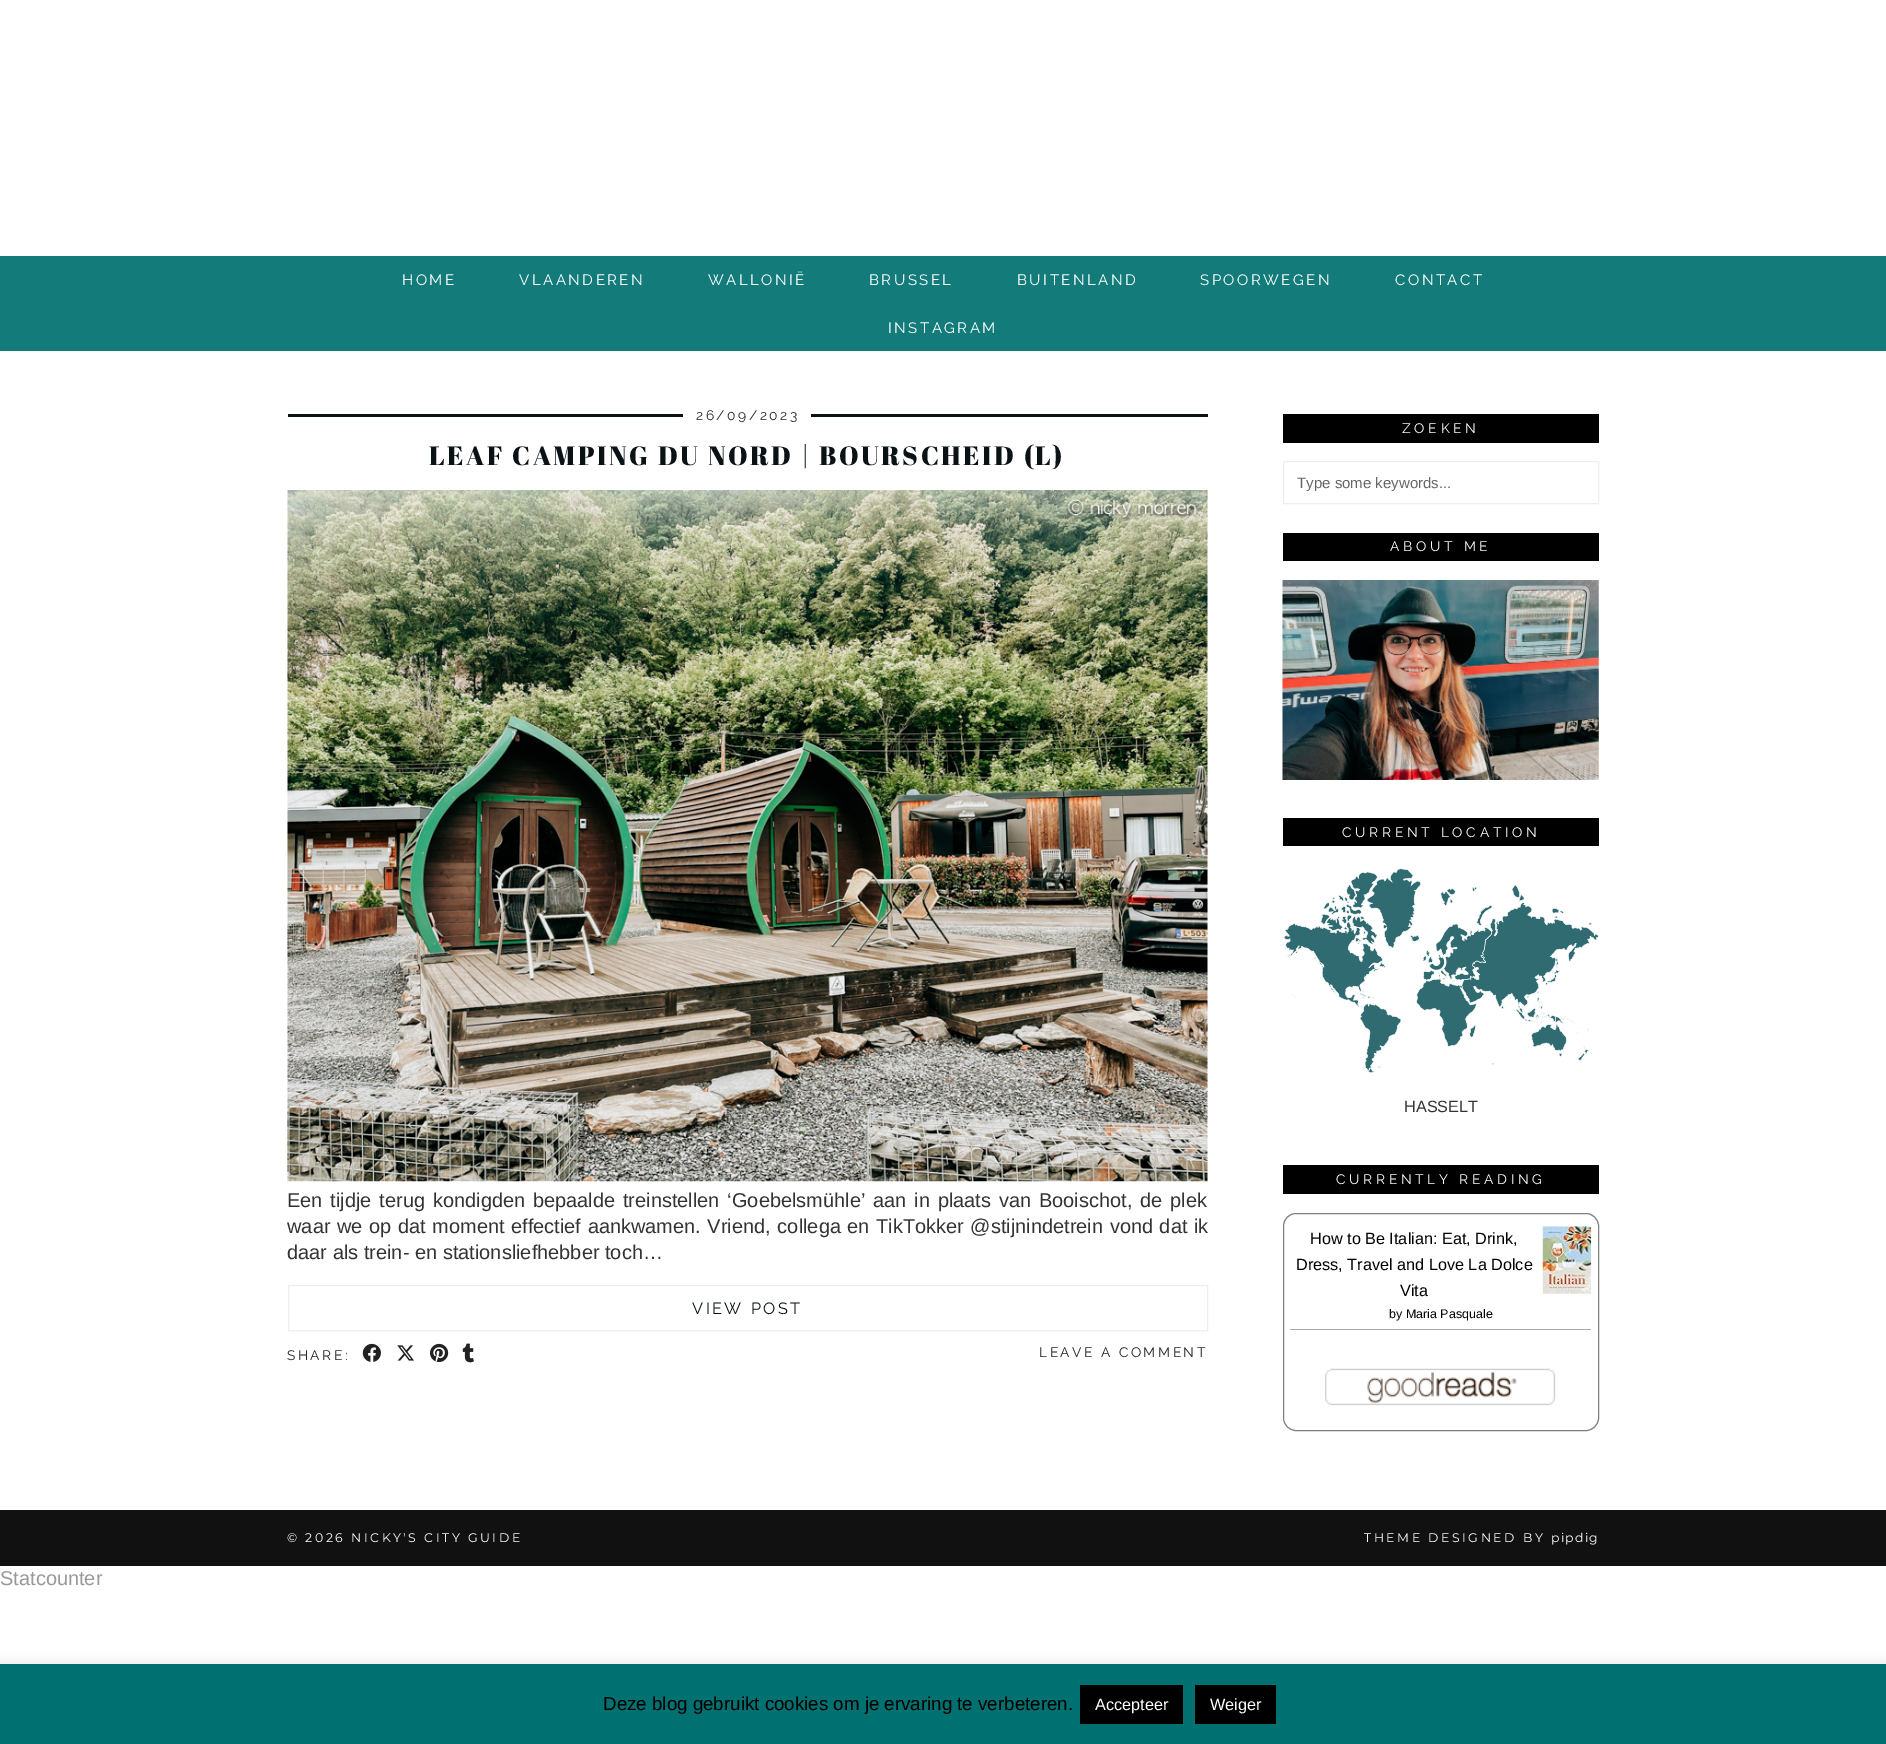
%!PS
<< /PageSize [1886 1744] /PageUsesTransparency true >> setpagedevice
/mt/moveto load def
/st/stroke load def
/gs/gsave load def
/gr/grestore load def
/co { dup -16 bitshift 255 div exch dup -8 bitshift 255 and 255 div exch 255 and 255 div setrgbcolor } def
/fn { [ exch dup neg 0 0 3 -1 roll 0 0 ] selectfont } def
/tx { co fn moveto show } def
/bx { co rectfill } def
/al { dup .setfillconstantalpha .setstrokeconstantalpha } def
/rr { 5 dict begin { /r /h /w /y /x } { exch def } forall
  x r add y moveto x w add y 2 copy h add r arct x w add y h add x 1 index r arct
  x y h add x y r arct x y 2 copy exch w add exch r arct closepath end } def
/sh { 12 dict begin { /a /b /q /h /w /y /x } { exch def } forall gsave /was 0 def
  9 -2 -9 { dup b mul 4 div /e exch def 1 sub .425 mul 2.718 exch exp 1 add a .99 .min exch div /now exch def
    1 1 now sub 1 was sub div sub al /was now def
    w h .min e 2 mul add 0 gt { x e sub y e sub w e 2 mul add h e 2 mul add
      q e add b .6 mul add w h .min 2 div e add .min 0 .max rr fill } if } for grestore end } def
/im { 5 dict begin { /h /w /y /x /name } { exch def } forall
  gsave x y translate w h scale
  w h 8 [w 0 0 h 0 0] name (r) file false 3 colorimage grestore end } def
0 .pushpdf14devicefilter
0 1744 translate 1 -1 scale
4 setmiterlimit
0 0 1886 1744 16#FFFFFF bx
0 256 1886 95 16#147B7B bx
288 414 920 3 16#0B1215 bx
683 414 128 3 16#FFFFFF bx
(media/1.raw) 287 490 921 692 im
16#EEEEEE co
288.5 1285.5 919 45 rectstroke
(media/2.raw) 362 1343 19 19 im
(media/3.raw) 397 1345 17 16 im
(media/4.raw) 430 1343 19 19 im
(media/5.raw) 462 1343 12 20 im
1283 414 316 29 16#000000 bx
16#EEEEEE co
1283.5 461.5 315 42 rectstroke
1283 533 316 28 16#000000 bx
(media/6.raw) 1282 580 317 200 im
1283 818 316 28 16#000000 bx
(media/7.raw) 1283 868 316 205 im
1283 1165 316 29 16#000000 bx
16#808080 co
1283.5 1213.5 315 217 12.5 rr st
1290 1329 301 1 16#A7AAAD bx
(media/8.raw) 1542 1226 50 68 im
(media/9.raw) 1325 1368 231 38 im
0 1510 1886 56 16#111111 bx
16#ACABAB co
0 1663 1886 81 0 6 .3 sh
0 1664 1886 80 16#007070 bx
1080 1685 103 39 16#000000 bx
1195 1685 81 39 16#000000 bx
/Raleway-Thin 15 fn
16#FFFFFF co
402 285 mt 2.5 0 (HOME) ashow
519 285 mt 2.5 0 (VLAANDEREN) ashow
708 285 mt 2.5 0 (WALLONIË) ashow
869 285 mt 2.5 0 (BRUSSEL) ashow
1017 285 mt 2.5 0 (BUITENLAND) ashow
1200 285 mt 2.5 0 (SPOORWEGEN) ashow
1395 285 mt 2.5 0 (CONTACT) ashow
888 333 mt 2.5 0 (INSTAGRAM) ashow
/Raleway-Thin 13.75 fn
16#222222 co
696 420 mt 2.5 0 (26/09/2023) ashow
/AbrilFatface-Regular 26.25 fn
16#0B1215 co
429 465 mt 2.5 0 (LEAF CAMPING DU NORD | BOURSCHEID \(L\)) ashow
/LiberationSans-Regular 20 fn
16#333333 co
287 1207 mt 2.25 0 32 (Een tijdje terug kondigden bepaalde treinstellen ‘Goebelsmühle’ aan in plaats van Booischot, de plek) widthshow
287 1233 mt 1 0 32 (waar we op dat moment effectief aankwamen. Vriend, collega en TikTokker @stijnindetrein vond dat ik) widthshow
(daar als trein- en stationsliefhebber toch…) 287 1259 /LiberationSans-Regular 20 16#333333 tx
/Raleway-Thin 16.25 fn
16#0B1215 co
692 1314 mt 2.5 0 (VIEW POST) ashow
/Raleway-Thin 13.75 fn
16#222222 co
287 1360 mt 2.5 0 (SHARE:) ashow
1039 1357 mt 2.5 0 (LEAVE A COMMENT) ashow
16#FFFFFF co
1402 433 mt 3.75 0 (ZOEKEN) ashow
gs
1296 474 284 17 rectclip
(Type some keywords...) 1297 488 /LiberationSans-Regular 15 16#666666 tx
gr
1390 551 mt 3.75 0 (ABOUT ME) ashow
1342 837 mt 3.75 0 (CURRENT LOCATION) ashow
(HASSELT) 1404 1112 /LiberationSans-Regular 16.25 16#333333 tx
/Raleway-Thin 13.75 fn
16#FFFFFF co
1336 1184 mt 3.75 0 (CURRENTLY READING) ashow
(How to Be Italian: Eat, Drink,) 1310 1244 /LiberationSans-Regular 16.25 16#000000 tx
(Dress, Travel and Love La Dolce) 1296 1270 /LiberationSans-Regular 16.25 16#000000 tx
(Vita) 1400 1296 /LiberationSans-Regular 16.25 16#000000 tx
(by Maria Pasquale) 1389 1318 /LiberationSans-Regular 12.5 16#000000 tx
/Montserrat-Regular 12.5 fn
16#FFFFFF co
287 1542 mt 2.5 0 (© 2026 NICKY'S CITY GUIDE) ashow
1364 1542 mt 2.5 0 (THEME DESIGNED BY) ashow
1551 1542 mt 1.25 0 (pipdig) ashow
(Statcounter) 0 1585 /LiberationSans-Regular 20 16#999999 tx
(Deze blog gebruikt cookies om je ervaring te verbeteren.) 603 1710 /LiberationSans-Regular 18.75 16#000000 tx
(Accepteer) 1095 1710 /LiberationSans-Regular 16.25 16#FFFFFF tx
(Weiger) 1210 1710 /LiberationSans-Regular 16.25 16#FFFFFF tx
.poppdf14devicefilter showpage
